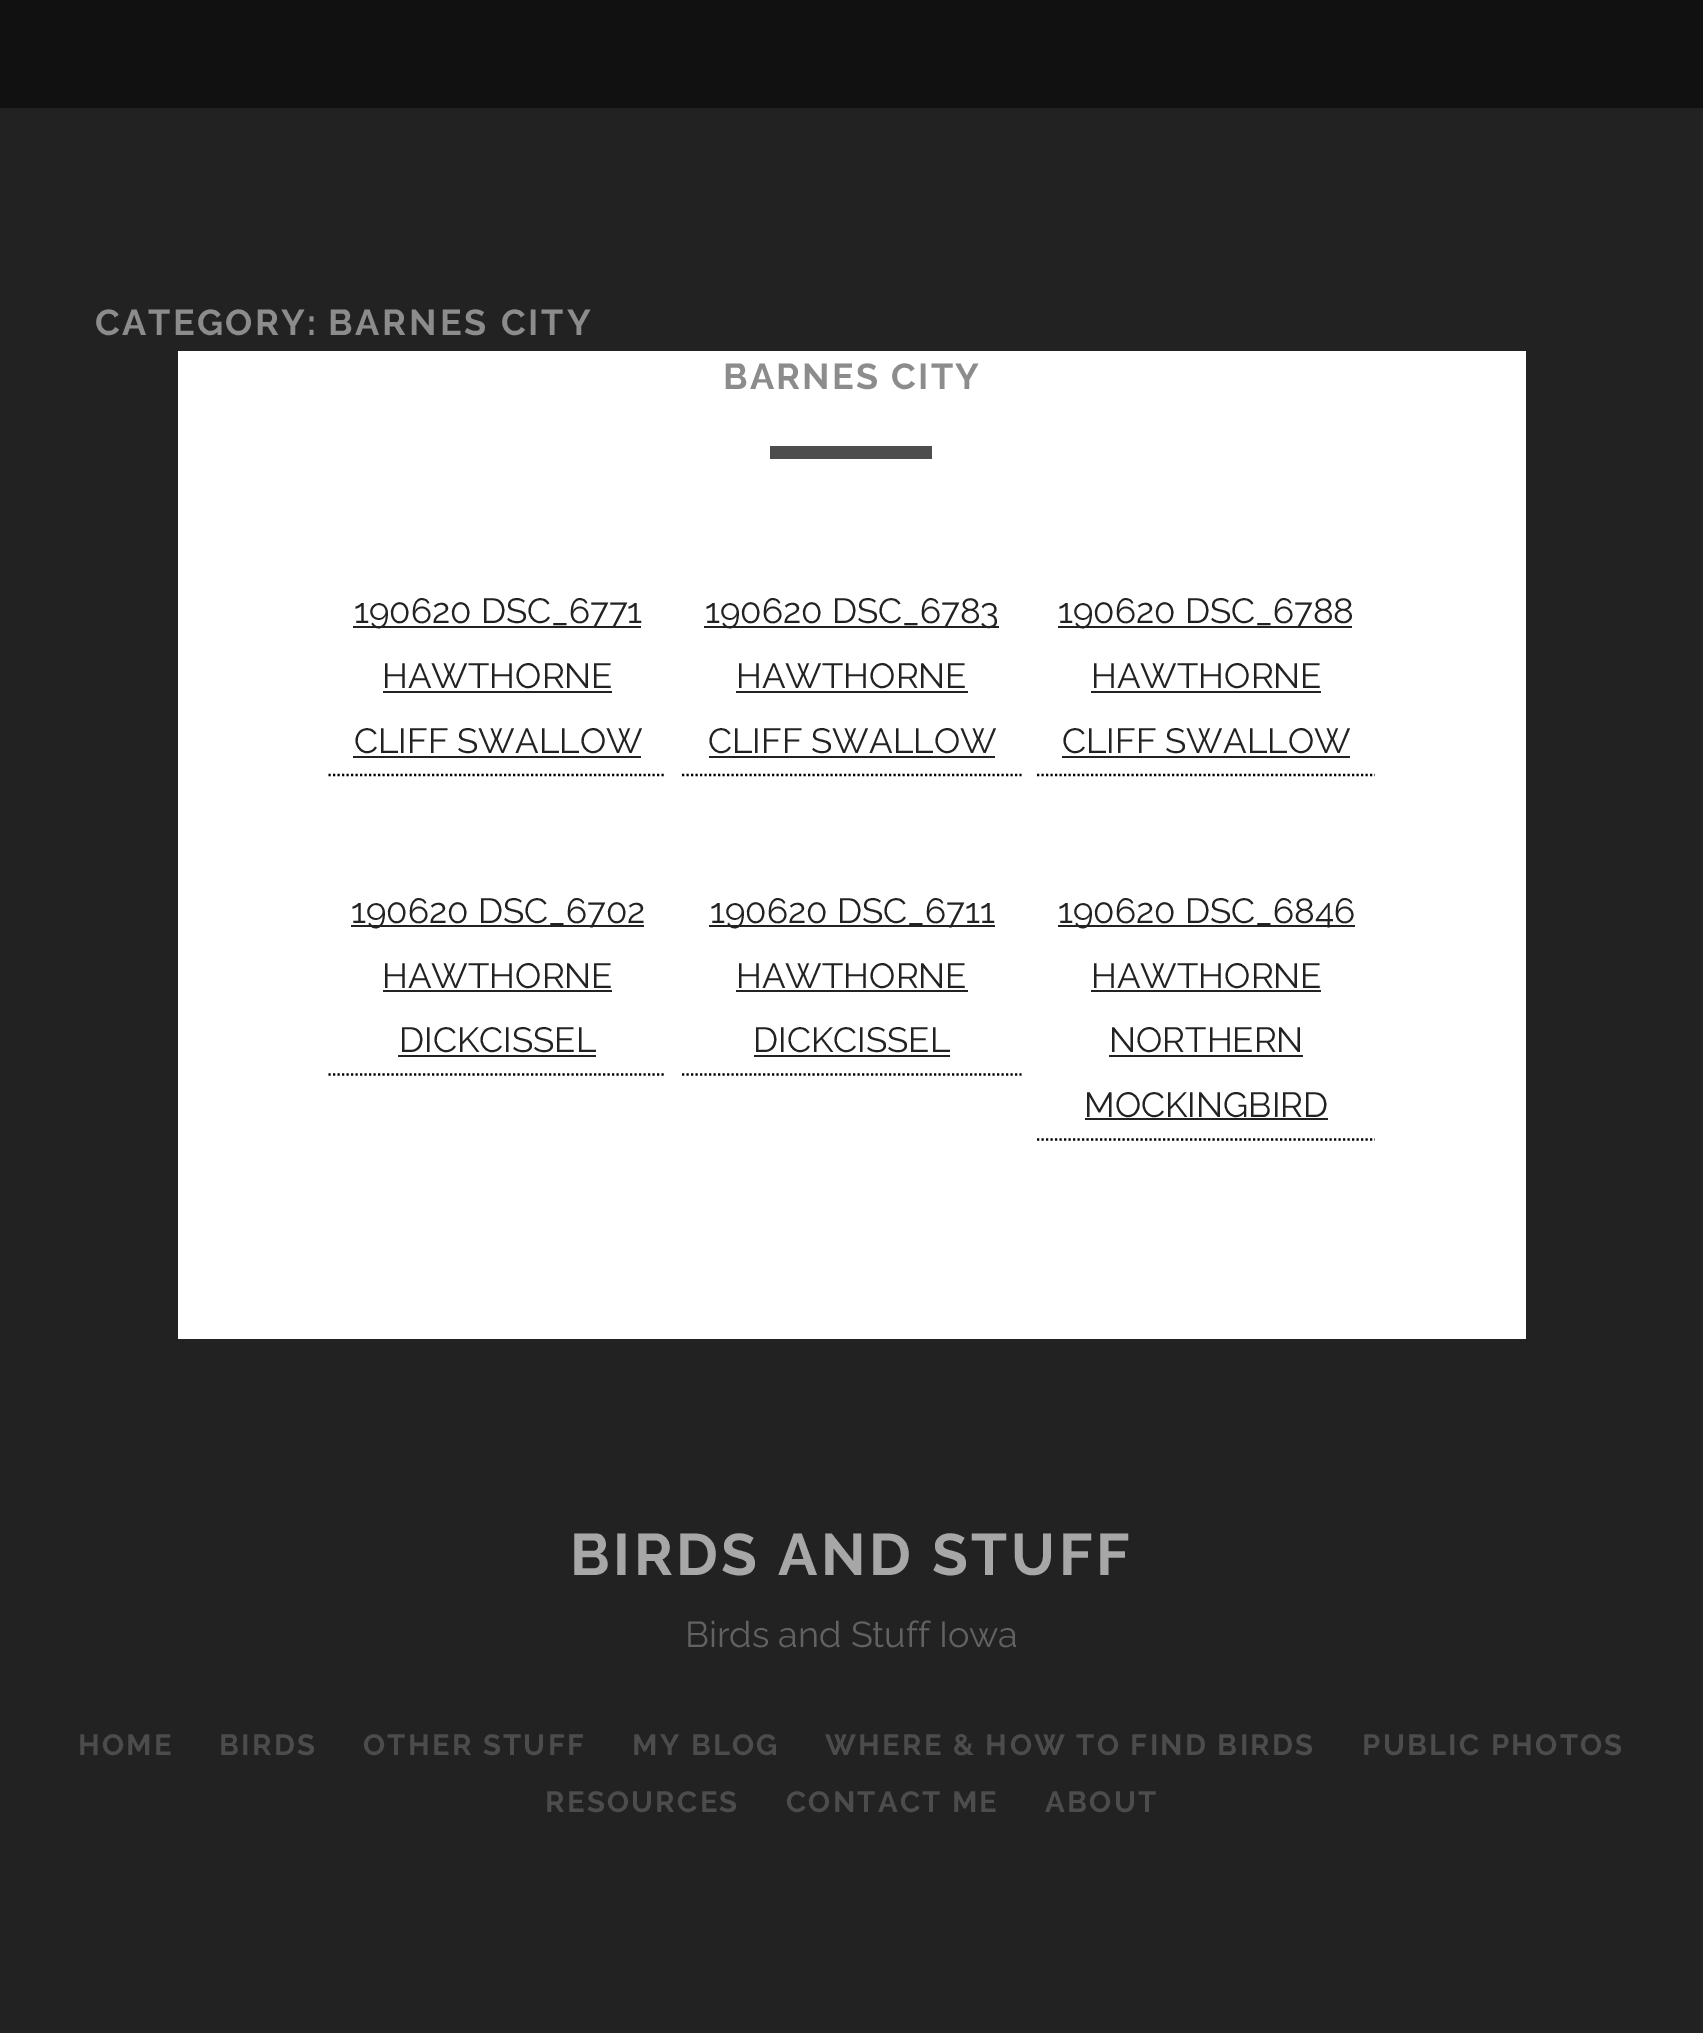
%!PS
<< /PageSize [1703 2033] >> setpagedevice
/mt/moveto load def
/li/lineto load def
/st/stroke load def
/lw/setlinewidth load def
/co { dup -16 bitshift 255 div exch dup -8 bitshift 255 and 255 div exch 255 and 255 div setrgbcolor } def
/fn { [ exch dup neg 0 0 3 -1 roll 0 0 ] selectfont } def
/tx { co fn moveto show } def
/bx { co rectfill } def
0 2033 translate 1 -1 scale
4 setmiterlimit
0 0 1703 2033 16#222222 bx
0 0 1703 108 16#111111 bx
178 351 1348 988 16#FFFFFF bx
770 446 162 13 16#4D4D4D bx
16#000000 co
2.2 lw
[2.25 2.25] 0 setdash
328.5 775 mt 666 775 li st
353 626 288 2 16#222222 bx
383 691 229 2 16#222222 bx
353 756 288 2 16#222222 bx
16#000000 co
682 775 mt 1021.5 775 li st
704 626 295 2 16#222222 bx
736 691 232 2 16#222222 bx
709 756 286 2 16#222222 bx
16#000000 co
1037 775 mt 1375 775 li st
1058 626 294 2 16#222222 bx
1091 691 230 2 16#222222 bx
1062 756 288 2 16#222222 bx
16#000000 co
328.5 1074.5 mt 666 1074.5 li st
351 925 293 2 16#222222 bx
383 990 229 2 16#222222 bx
398 1055 198 2 16#222222 bx
16#000000 co
682 1074.5 mt 1021.5 1074.5 li st
709 925 286 2 16#222222 bx
736 990 232 2 16#222222 bx
754 1055 196 2 16#222222 bx
16#000000 co
1037 1139.5 mt 1375 1139.5 li st
1058 925 297 2 16#222222 bx
1091 990 230 2 16#222222 bx
1109 1055 194 2 16#222222 bx
1085 1118 243 2 16#222222 bx
/Raleway-Bold 36 fn
16#8C8C8C co
95 335 mt 2.25 0 (CATEGORY:) ashow
328 335 mt 2.9 0 (BARNES CITY) ashow
723 389 mt 2.25 0 (BARNES CITY) ashow
(190620 DSC_6771) 354 623 /Raleway-Regular 35 16#222222 tx
(HAWTHORNE) 382 688 /Raleway-Regular 35 16#222222 tx
(CLIFF SWALLOW) 354 753 /Raleway-Regular 35 16#222222 tx
(190620 DSC_6783) 705 623 /Raleway-Regular 35 16#222222 tx
(HAWTHORNE) 736 688 /Raleway-Regular 35 16#222222 tx
(CLIFF SWALLOW) 708 753 /Raleway-Regular 35 16#222222 tx
(190620 DSC_6788) 1058 623 /Raleway-Regular 35 16#222222 tx
(HAWTHORNE) 1091 688 /Raleway-Regular 35 16#222222 tx
(CLIFF SWALLOW) 1062 753 /Raleway-Regular 35 16#222222 tx
(190620 DSC_6702) 351 923 /Raleway-Regular 35 16#222222 tx
(HAWTHORNE) 382 988 /Raleway-Regular 35 16#222222 tx
(DICKCISSEL) 399 1052 /Raleway-Regular 35 16#222222 tx
(190620 DSC_6711) 710 923 /Raleway-Regular 35 16#222222 tx
(HAWTHORNE) 736 988 /Raleway-Regular 35 16#222222 tx
(DICKCISSEL) 753 1052 /Raleway-Regular 35 16#222222 tx
(190620 DSC_6846) 1058 923 /Raleway-Regular 35 16#222222 tx
(HAWTHORNE) 1091 988 /Raleway-Regular 35 16#222222 tx
(NORTHERN) 1109 1052 /Raleway-Regular 35 16#222222 tx
(MOCKINGBIRD) 1084 1117 /Raleway-Regular 35 16#222222 tx
/Raleway-Bold 58.5 fn
16#A7A7A7 co
570 1575 mt 3.5 0 (BIRDS AND STUFF) ashow
(Birds and Stuff Iowa) 685 1647 /Raleway-Regular 36 16#626262 tx
/Raleway-Bold 29.25 fn
16#4C4C4C co
78 1755 mt 2.3 0 (HOME) ashow
219 1755 mt 2.3 0 (BIRDS) ashow
363 1755 mt 2.3 0 (OTHER STUFF) ashow
632 1755 mt 2.3 0 (MY BLOG) ashow
825 1755 mt 2.3 0 (WHERE & HOW TO FIND BIRDS) ashow
1362 1755 mt 2.3 0 (PUBLIC PHOTOS) ashow
545 1812 mt 2.3 0 (RESOURCES) ashow
786 1812 mt 2.3 0 (CONTACT ME) ashow
1045 1812 mt 2.3 0 (ABOUT) ashow
showpage
